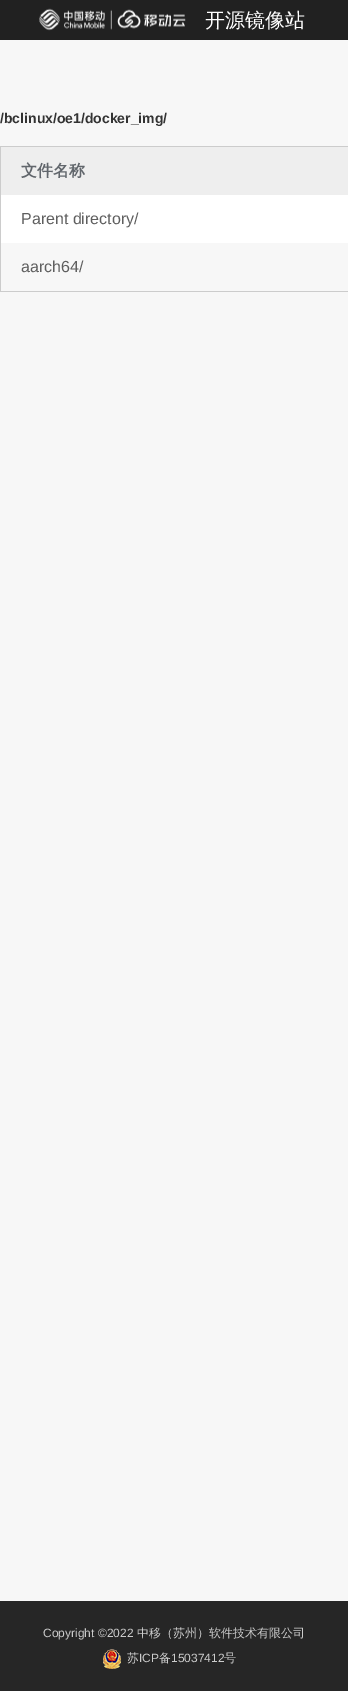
%!PS
<< /PageSize [348 1691] >> setpagedevice
/co { dup -16 bitshift 255 div exch dup -8 bitshift 255 and 255 div exch 255 and 255 div setrgbcolor } def
/fn { [ exch dup neg 0 0 3 -1 roll 0 0 ] selectfont } def
/tx { co fn moveto show } def
/bx { co rectfill } def
/im { 5 dict begin { /h /w /y /x /name } { exch def } forall
  gsave x y translate w h scale
  w h 8 [w 0 0 h 0 0] name (r) file false 3 colorimage grestore end } def
0 1691 translate 1 -1 scale
4 setmiterlimit
0 0 348 1691 16#212121 bx
(media/1.raw) 39 8 147 23 im
0 40 348 1561 16#F7F7F7 bx
0 146 348 1 16#CCCCCC bx
0 291 348 1 16#CCCCCC bx
0 146 1 146 16#CCCCCC bx
1 147 347 48 16#EEEEEE bx
1 195 347 48 16#FFFFFF bx
0 1601 348 90 16#262626 bx
(media/2.raw) 103 1649 18 20 im
(开源镜像站) 205 27 /WenQuanYiZenHei-Medium 20 16#FFFFFF tx
(/bclinux/oe1/docker_img/) 0 123 /LiberationSans-Bold 14 16#333333 tx
(文件名称) 21 176 /WenQuanYiZenHei-Bold 16 16#61666C tx
(Parent directory/) 21 224 /LiberationSans-Regular 16 16#5F5F5F tx
(aarch64/) 21 272 /LiberationSans-Regular 16 16#5F5F5F tx
(Copyright ©2022) 43 1637 /LiberationSans-Regular 12 16#CCCCCC tx
(中移（苏州）软件技术有限公司) 137 1637 /WenQuanYiZenHei-Medium 12 16#CCCCCC tx
(苏) 127 1662 /WenQuanYiZenHei-Medium 12 16#CCCCCC tx
(ICP) 139 1662 /LiberationSans-Regular 12 16#CCCCCC tx
(备) 159 1662 /WenQuanYiZenHei-Medium 12 16#CCCCCC tx
(15037412) 171 1662 /LiberationSans-Regular 12 16#CCCCCC tx
(号) 224 1662 /WenQuanYiZenHei-Medium 12 16#CCCCCC tx
showpage
